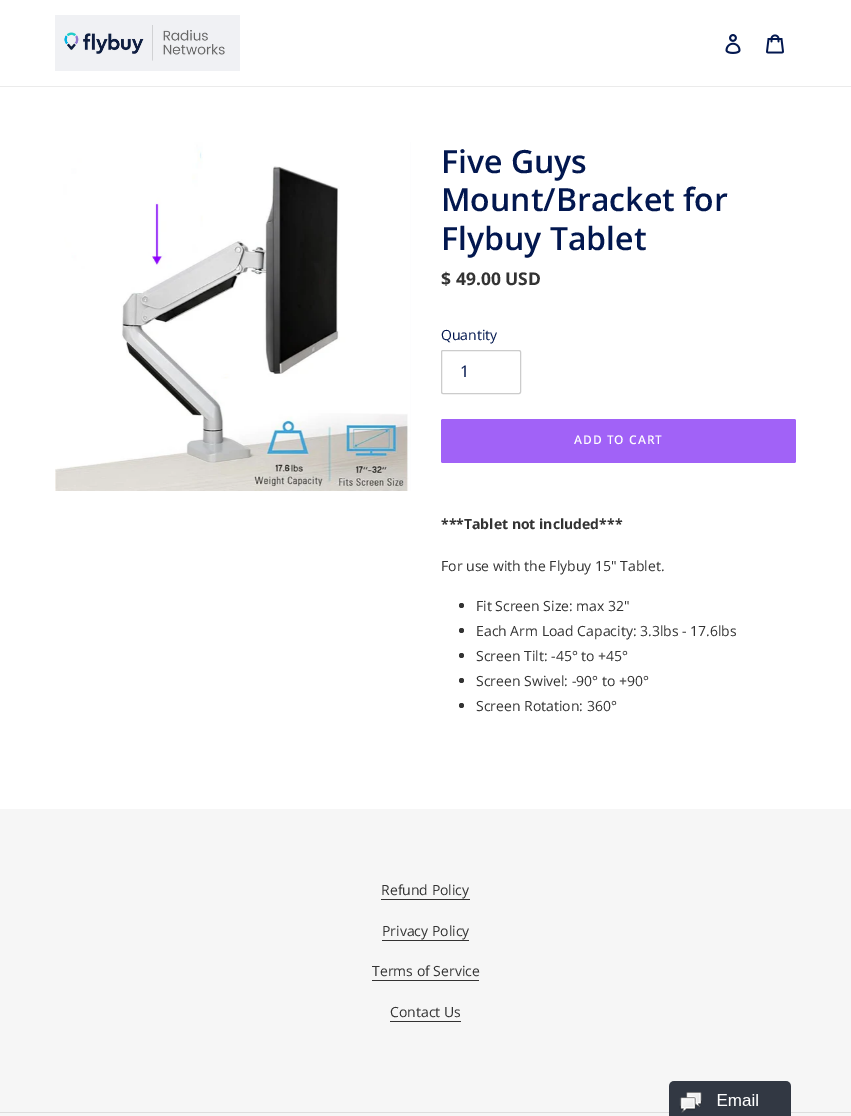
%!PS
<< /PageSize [851 1116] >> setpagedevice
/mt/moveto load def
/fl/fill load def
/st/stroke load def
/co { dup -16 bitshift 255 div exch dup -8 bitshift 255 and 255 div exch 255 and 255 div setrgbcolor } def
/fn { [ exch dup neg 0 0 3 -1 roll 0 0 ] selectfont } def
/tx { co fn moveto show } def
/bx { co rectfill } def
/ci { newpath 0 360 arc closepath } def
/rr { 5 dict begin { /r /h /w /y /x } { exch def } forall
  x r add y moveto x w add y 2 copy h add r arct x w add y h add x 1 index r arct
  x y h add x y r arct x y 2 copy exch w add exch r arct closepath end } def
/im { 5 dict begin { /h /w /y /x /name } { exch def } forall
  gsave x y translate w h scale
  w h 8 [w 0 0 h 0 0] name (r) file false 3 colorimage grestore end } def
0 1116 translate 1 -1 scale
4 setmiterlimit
0 0 851 1116 16#FFFFFF bx
0 86 851 1 16#EBEBEB bx
55 15 185 56 16#F0F1F4 bx
(media/1.raw) 64 25 161 36 im
(media/2.raw) 725 34 16 20 im
(media/3.raw) 766 34 18 20 im
(media/4.raw) 55 142 356 349 im
16#CCCCCC co
441.5 350.5 79 43 1.5 rr st
16#A162F7 co
441 419 355 44 2 rr fl
16#333333 co
461.5 605.5 2.5 ci fl
461.5 630.5 2.5 ci fl
461.5 655.5 2.5 ci fl
461.5 680.5 2.5 ci fl
461.5 705.5 2.5 ci fl
0 809 851 307 16#F6F6F6 bx
381 899 89 1 16#333232 bx
382 940 87 1 16#333232 bx
372 980 107 1 16#333232 bx
390 1021 71 1 16#333232 bx
0 1112 851 1 16#DDDDDD bx
(media/5.raw) 669 1081 122 35 im
(Five Guys) 441 173 /OpenSans-SemiBold 32 16#02174F tx
(Mount/Bracket for) 441 211 /OpenSans-SemiBold 32 16#02174F tx
(Flybuy Tablet) 441 250 /OpenSans-SemiBold 32 16#02174F tx
($ 49.00 USD) 441 285 /OpenSans-Bold 17.5 16#333333 tx
(Quantity) 441 340 /OpenSans-Regular 14 16#02174F tx
(1) 460 377 /OpenSans-Regular 16 16#02174F tx
/OpenSans-SemiBold 12 fn
16#FFFFFF co
574 444 mt 1 0 (ADD TO CART) ashow
(***Tablet not included***) 441 529 /OpenSans-Bold 14 16#333333 tx
(For use with the Flybuy 15" Tablet.) 441 571 /OpenSans-Regular 14 16#333333 tx
(Fit Screen Size: max 32") 476 611 /OpenSans-Regular 14 16#333333 tx
(Each Arm Load Capacity: 3.3lbs - 17.6lbs) 476 636 /OpenSans-Regular 14 16#333333 tx
(Screen Tilt: -45° to +45°) 476 661 /OpenSans-Regular 14 16#333333 tx
(Screen Swivel: -90° to +90°) 476 686 /OpenSans-Regular 14 16#333333 tx
(Screen Rotation: 360°) 476 711 /OpenSans-Regular 14 16#333333 tx
(Refund Policy) 381 895 /OpenSans-Regular 14 16#333333 tx
(Privacy Policy) 382 936 /OpenSans-Regular 14 16#333333 tx
(Terms of Service) 372 976 /OpenSans-Regular 14 16#333333 tx
(Contact Us) 390 1017 /OpenSans-Regular 14 16#333333 tx
showpage
